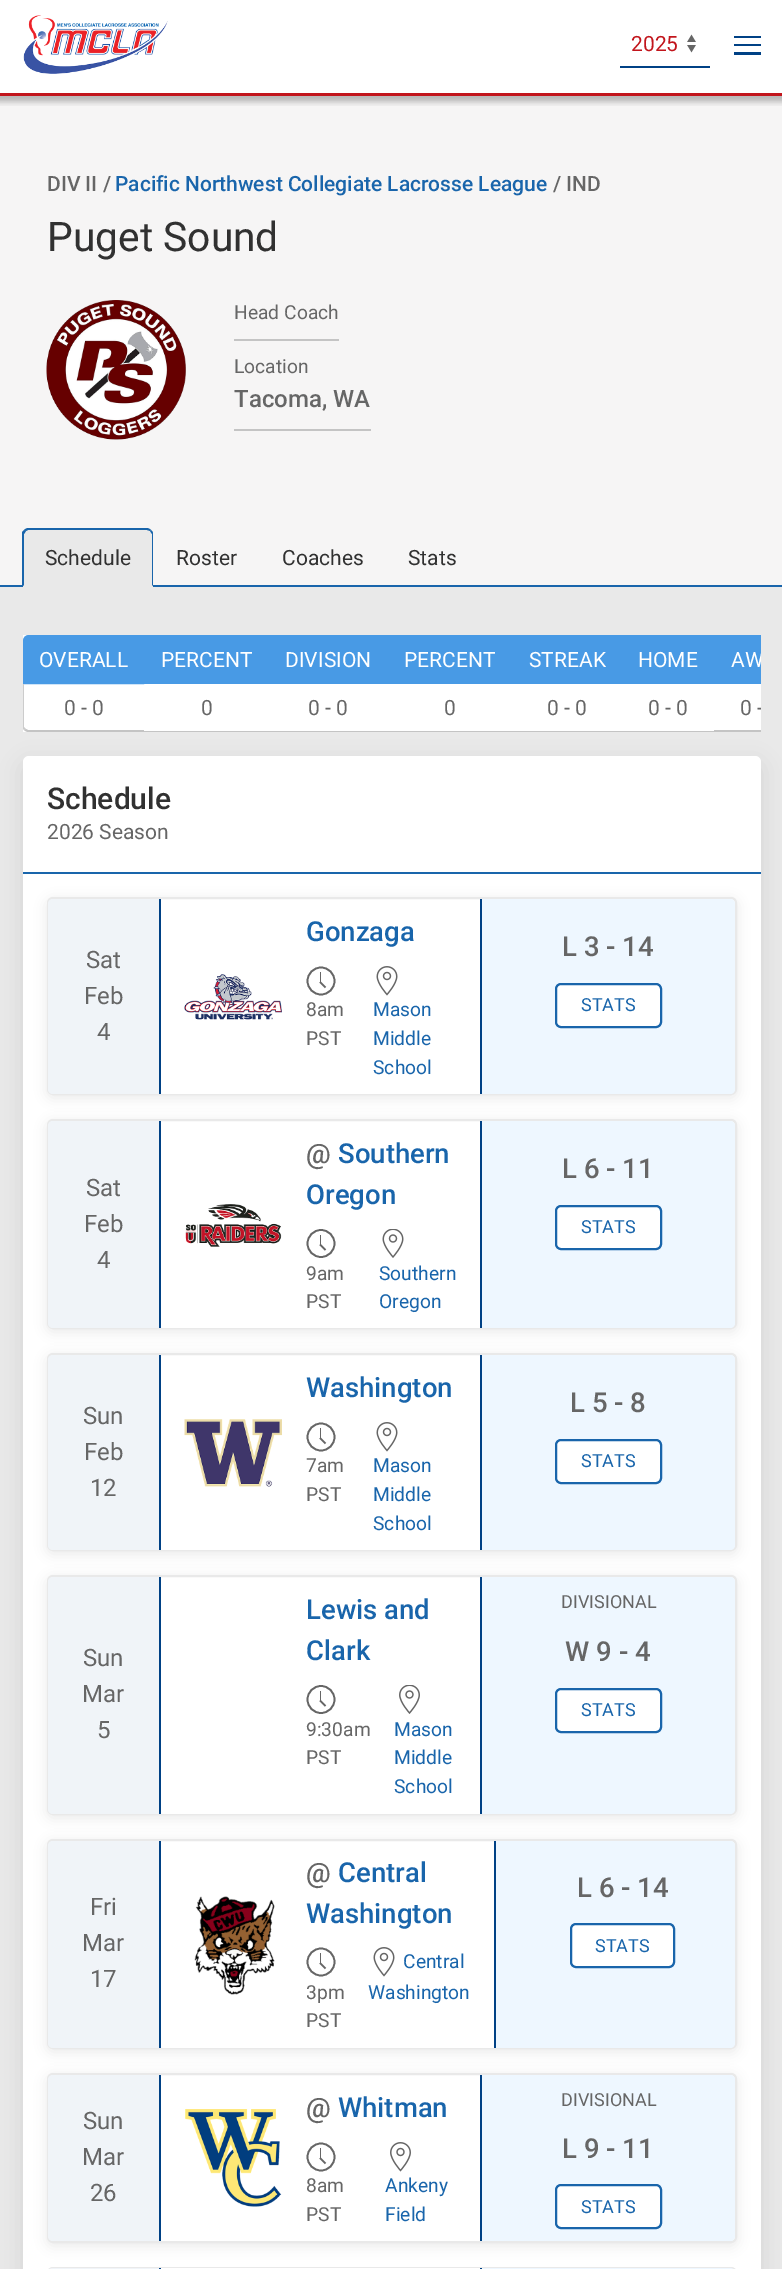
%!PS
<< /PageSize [782 2269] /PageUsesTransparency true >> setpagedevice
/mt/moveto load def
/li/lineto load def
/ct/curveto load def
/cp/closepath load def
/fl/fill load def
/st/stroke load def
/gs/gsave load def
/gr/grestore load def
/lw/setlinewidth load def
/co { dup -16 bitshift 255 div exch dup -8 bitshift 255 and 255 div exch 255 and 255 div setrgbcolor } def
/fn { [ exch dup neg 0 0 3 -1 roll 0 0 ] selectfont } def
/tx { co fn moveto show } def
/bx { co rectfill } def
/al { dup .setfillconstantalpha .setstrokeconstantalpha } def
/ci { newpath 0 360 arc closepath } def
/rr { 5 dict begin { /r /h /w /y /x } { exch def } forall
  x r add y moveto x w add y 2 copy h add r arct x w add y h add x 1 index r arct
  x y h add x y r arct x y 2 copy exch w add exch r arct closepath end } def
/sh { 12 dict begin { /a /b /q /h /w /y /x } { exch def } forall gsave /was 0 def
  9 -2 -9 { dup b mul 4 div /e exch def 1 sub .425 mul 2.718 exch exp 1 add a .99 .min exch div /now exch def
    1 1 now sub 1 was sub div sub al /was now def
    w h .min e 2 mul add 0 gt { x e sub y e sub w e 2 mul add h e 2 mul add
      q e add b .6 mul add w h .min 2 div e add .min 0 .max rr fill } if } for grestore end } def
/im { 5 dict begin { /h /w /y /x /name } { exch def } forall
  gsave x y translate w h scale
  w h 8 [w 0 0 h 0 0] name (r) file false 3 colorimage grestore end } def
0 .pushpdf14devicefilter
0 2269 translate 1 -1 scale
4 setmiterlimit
0 0 782 2269 16#FFFFFF bx
0 96 782 489 16#F6F5F5 bx
gs
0 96 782 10 rectclip
16#000000 co
-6 -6 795 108 0 3 .25 sh
gr
0 93 782 3 16#C2151C bx
(media/1.raw) 23 15 145 59 im
(media/2.raw) 687 34 9 19 im
620 66 90 2 16#004185 bx
734 36 27 2 16#004185 bx
734 44 27 2 16#004185 bx
734 52 27 3 16#004185 bx
0 587 782 1682 16#E9E9E9 bx
(media/3.raw) 46 300 140 140 im
234 339 105 2 16#C4C4C4 bx
234 429 137 2 16#C4C4C4 bx
0 585 782 2 16#1965AB bx
16#E9E9E9 co
29 528 mt 147 528 li 150.5 528 153 530.5 153 534 ct 153 587 li 23 587 li 23 534 li 23 530.5 25.5 528 29 528 ct cp fl
16#1965AB co
28 528 mt 27 528 25 529 24 530 ct 26 531 li 28 530 li 147 530 li 150 531 li 151 530 li 150 529 148 528 147 528 ct cp fl
153 586 mt 153 534 li 153 532 152 531 151 530 ct 150 531 li 152 534 li 152 585 li cp fl
22 532 mt 24 530 li 26 531 li 24 534 li 24 585 li 23 586 li 22 586 li cp fl
23 635 738 97 16#FFFFFF bx
16#489AE5 co
29 636 mt 143 636 li 143 683 li 24 683 li 24 641 li 24 638 26 636 29 636 ct cp gs fl gr
2 lw
st
144 635 617 49 16#489AE5 bx
16#C4C4C4 co
144 732 mt 144 730 li 28 730 li 26 729 li 24 730 li 25 731 27 732 28 732 ct cp fl
gs
23 635 738 97 rectclip
16#CCCCCC co
24 684 mt 24 727 li 26 729 li 24 730 li 22 728 li 22 684 li cp fl
gr
144 731 570 1 16#C4C4C4 bx
gs
23 635 738 97 rectclip
714 730 mt 714 732 li 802 732 li 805 730 li 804 729 li 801 730 li cp fl
gr
16#000000 co
23 764 738 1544 6 11 .08 sh
16#FFFFFF co
23 756 738 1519 6 rr fl
23 872 738 2 16#1965AB bx
16#000000 co
47 900 690 198 6 6 .08 sh
16#FFFFFF co
48 898 688 196 5 rr gs fl gr
16#E9E9E9 co
st
16#F0F4F8 co
53 899 mt 161 899 li 161 1094 li 53 1094 li 50 1094 48 1092 48 1089 ct 48 904 li 48 901 50 899 53 899 ct cp fl
159 899 2 195 16#004185 bx
161 1093 319 1 16#FFFFFF bx
(media/4.raw) 184 974 98 46 im
16#666666 co
1.7 lw
321 981 13.5 ci st
320 972 1 11 16#666666 bx
325.5 987.5 mt 320 982 li st
(media/5.raw) 376 966 22 30 im
16#EEF7FF co
480 899 mt 730 899 li 733 899 735 901 735 904 ct 735 1089 li 735 1092 733 1094 730 1094 ct 480 1094 li cp fl
480 899 2 195 16#004185 bx
16#FFFFFF co
556 984 105 43 5 rr gs fl gr
16#1965AB co
2 lw
st
16#000000 co
47 1122 690 210 6 6 .08 sh
16#FFFFFF co
48 1120 688 208 5 rr gs fl gr
16#E9E9E9 co
st
16#F0F4F8 co
53 1121 mt 161 1121 li 161 1328 li 53 1328 li 50 1328 48 1326 48 1323 ct 48 1126 li 48 1123 50 1121 53 1121 ct cp fl
159 1121 2 207 16#004185 bx
161 1327 319 1 16#FFFFFF bx
(media/6.raw) 185 1204 97 43 im
16#666666 co
1.7 lw
321 1243.5 13.5 ci st
320 1235 1 10 16#666666 bx
325.5 1250 mt 320 1244.5 li st
(media/7.raw) 382 1229 22 29 im
16#EEF7FF co
480 1121 mt 730 1121 li 733 1121 735 1123 735 1126 ct 735 1323 li 735 1326 733 1328 730 1328 ct 480 1328 li cp fl
480 1121 2 207 16#004185 bx
16#FFFFFF co
556 1206 105 43 5 rr gs fl gr
16#1965AB co
2 lw
st
16#000000 co
47 1356 690 198 6 6 .08 sh
16#FFFFFF co
48 1354 688 196 5 rr gs fl gr
16#E9E9E9 co
st
16#F0F4F8 co
53 1355 mt 161 1355 li 161 1550 li 53 1550 li 50 1550 48 1548 48 1545 ct 48 1360 li 48 1357 50 1355 53 1355 ct cp fl
159 1355 2 195 16#004185 bx
161 1549 319 1 16#FFFFFF bx
(media/8.raw) 184 1419 98 68 im
16#666666 co
1.7 lw
321 1437 13.5 ci st
320 1428 1 11 16#666666 bx
325.5 1443.5 mt 320 1438 li st
(media/5.raw) 376 1422 22 30 im
16#EEF7FF co
480 1355 mt 730 1355 li 733 1355 735 1357 735 1360 ct 735 1545 li 735 1548 733 1550 730 1550 ct 480 1550 li cp fl
480 1355 2 195 16#004185 bx
16#FFFFFF co
556 1440 105 43 5 rr gs fl gr
16#1965AB co
2 lw
st
16#000000 co
47 1578 690 240 6 6 .08 sh
16#FFFFFF co
48 1576 688 238 5 rr gs fl gr
16#E9E9E9 co
st
16#F0F4F8 co
53 1577 mt 161 1577 li 161 1814 li 53 1814 li 50 1814 48 1812 48 1809 ct 48 1582 li 48 1579 50 1577 53 1577 ct cp fl
159 1577 2 237 16#004185 bx
161 1813 319 1 16#FFFFFF bx
16#666666 co
1.7 lw
321 1699.5 13.5 ci st
320 1691 1 10 16#666666 bx
325.5 1706 mt 320 1700.5 li st
(media/9.raw) 399 1685 21 29 im
16#EEF7FF co
480 1577 mt 730 1577 li 733 1577 735 1579 735 1582 ct 735 1809 li 735 1812 733 1814 730 1814 ct 480 1814 li cp fl
480 1577 2 237 16#004185 bx
16#FFFFFF co
556 1689 105 43 5 rr gs fl gr
16#1965AB co
2 lw
st
16#000000 co
47 1842 690 210 6 6 .08 sh
16#FFFFFF co
48 1840 688 208 5 rr gs fl gr
16#E9E9E9 co
st
16#F0F4F8 co
53 1841 mt 161 1841 li 161 2048 li 53 2048 li 50 2048 48 2046 48 2043 ct 48 1846 li 48 1843 50 1841 53 1841 ct cp fl
159 1841 2 207 16#004185 bx
161 2047 333 1 16#FFFFFF bx
(media/10.raw) 194 1896 81 99 im
16#666666 co
1.7 lw
321 1962 13.5 ci st
320 1953 1 11 16#666666 bx
325.5 1968.5 mt 320 1963 li st
(media/5.raw) 373 1947 22 30 im
16#EEF7FF co
494 1841 mt 730 1841 li 733 1841 735 1843 735 1846 ct 735 2043 li 735 2046 733 2048 730 2048 ct 494 2048 li cp fl
494 1841 2 207 16#004185 bx
16#FFFFFF co
571 1924 103 43 5 rr gs fl gr
16#1965AB co
2 lw
st
16#000000 co
47 2076 690 170 6 6 .08 sh
16#FFFFFF co
48 2074 688 168 5 rr gs fl gr
16#E9E9E9 co
st
16#F0F4F8 co
53 2075 mt 161 2075 li 161 2241 li 53 2241 li 50 2241 48 2239 48 2236 ct 48 2080 li 48 2077 50 2075 53 2075 ct cp fl
159 2075 2 166 16#004185 bx
(media/11.raw) 185 2109 97 98 im
16#666666 co
1.7 lw
321 2157 13.5 ci st
320 2148 1 11 16#666666 bx
325.5 2163.5 mt 320 2158 li st
(media/12.raw) 390 2142 21 30 im
16#EEF7FF co
480 2075 mt 730 2075 li 733 2075 735 2077 735 2080 ct 735 2236 li 735 2239 733 2241 730 2241 ct 480 2241 li cp fl
480 2075 2 166 16#004185 bx
16#FFFFFF co
556 2185 105 43 5 rr gs fl gr
16#1965AB co
2 lw
st
16#E9E9E9 co
48 2268 688 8 5 rr st
16#F0F4F8 co
53 2268 mt 161 2268 li 161 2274 li 53 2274 li 50 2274 48 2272 48 2269 ct 48 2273 li 48 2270 50 2268 53 2268 ct cp fl
159 2268 2 1 16#004185 bx
161 2268 319 1 16#FFFFFF bx
16#EEF7FF co
480 2268 mt 730 2268 li 733 2268 735 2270 735 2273 ct 735 2269 li 735 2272 733 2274 730 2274 ct 480 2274 li cp fl
480 2268 2 1 16#004185 bx
(2025) 631 51 /Roboto-Regular 21 16#C2151C tx
(DIV II /) 47 191 /Roboto-Medium 21 16#666666 tx
(Pacific Northwest Collegiate Lacrosse League) 115 191 /Roboto-Medium 21 16#1965AB tx
(/ IND) 553 191 /Roboto-Medium 21 16#666666 tx
(Puget Sound) 47 251 /Roboto-Regular 40.75 16#313131 tx
(Head Coach) 234 319 /Roboto-Regular 19.25 16#666666 tx
(Location) 234 373 /Roboto-Regular 19.25 16#666666 tx
(Tacoma, WA) 234 407 /Roboto-Medium 24 16#666666 tx
(Schedule) 45 565 /Roboto-Regular 21 16#313131 tx
(Roster) 176 565 /Roboto-Regular 21 16#313131 tx
(Coaches) 282 565 /Roboto-Regular 21 16#313131 tx
(Stats) 408 565 /Roboto-Regular 21 16#313131 tx
(OVERALL) 39 667 /Roboto-Regular 21 16#FFFFFF tx
(PERCENT) 161 667 /Roboto-Regular 21 16#FFFFFF tx
(DIVISION) 285 667 /Roboto-Regular 21 16#FFFFFF tx
(PERCENT) 404 667 /Roboto-Regular 21 16#FFFFFF tx
(STREAK) 529 667 /Roboto-Regular 21 16#FFFFFF tx
(HOME) 638 667 /Roboto-Regular 21 16#FFFFFF tx
gs
23 635 738 97 rectclip
(AW) 731 667 /Roboto-Regular 21 16#FFFFFF tx
gr
(0 - 0) 64 715 /Roboto-Regular 21 16#666666 tx
(0) 201 715 /Roboto-Regular 21 16#666666 tx
(0 - 0) 308 715 /Roboto-Regular 21 16#666666 tx
(0) 444 715 /Roboto-Regular 21 16#666666 tx
(0 - 0) 547 715 /Roboto-Regular 21 16#666666 tx
(0 - 0) 648 715 /Roboto-Regular 21 16#666666 tx
gs
23 635 738 97 rectclip
(0 -) 740 715 /Roboto-Regular 21 16#666666 tx
gr
(Schedule) 47 809 /Roboto-Medium 30 16#313131 tx
(2026 Season) 47 839 /Roboto-Regular 21 16#666666 tx
(Sat) 86 968 /Roboto-Regular 24 16#666666 tx
(Feb) 84 1004 /Roboto-Regular 24 16#666666 tx
(4) 97 1040 /Roboto-Regular 24 16#666666 tx
(Gonzaga) 306 941 /Roboto-Medium 27.5 16#1965AB tx
(8am) 306 1016 /Roboto-Regular 19.25 16#666666 tx
(PST) 306 1045 /Roboto-Regular 19.25 16#666666 tx
(Mason) 373 1016 /Roboto-Regular 19.25 16#1965AB tx
(Middle) 373 1045 /Roboto-Regular 19.25 16#1965AB tx
(School) 373 1074 /Roboto-Regular 19.25 16#1965AB tx
(L 3 - 14) 562 956 /Roboto-Medium 27.5 16#666666 tx
(STATS) 581 1011 /Roboto-Regular 18 16#1965AB tx
(Sat) 86 1196 /Roboto-Regular 24 16#666666 tx
(Feb) 84 1232 /Roboto-Regular 24 16#666666 tx
(4) 97 1268 /Roboto-Regular 24 16#666666 tx
(@) 306 1163 /Roboto-Medium 27.5 16#666666 tx
(Southern) 338 1163 /Roboto-Medium 27.5 16#1965AB tx
(Oregon) 306 1204 /Roboto-Medium 27.5 16#1965AB tx
(9am) 306 1280 /Roboto-Regular 19.25 16#666666 tx
(PST) 306 1308 /Roboto-Regular 19.25 16#666666 tx
(Southern) 379 1280 /Roboto-Regular 19.25 16#1965AB tx
(Oregon) 379 1308 /Roboto-Regular 19.25 16#1965AB tx
(L 6 - 11) 562 1178 /Roboto-Medium 27.5 16#666666 tx
(STATS) 581 1233 /Roboto-Regular 18 16#1965AB tx
(Sun) 83 1424 /Roboto-Regular 24 16#666666 tx
(Feb) 84 1460 /Roboto-Regular 24 16#666666 tx
(12) 90 1496 /Roboto-Regular 24 16#666666 tx
(Washington) 306 1397 /Roboto-Medium 27.5 16#1965AB tx
(7am) 306 1472 /Roboto-Regular 19.25 16#666666 tx
(PST) 306 1501 /Roboto-Regular 19.25 16#666666 tx
(Mason) 373 1472 /Roboto-Regular 19.25 16#1965AB tx
(Middle) 373 1501 /Roboto-Regular 19.25 16#1965AB tx
(School) 373 1530 /Roboto-Regular 19.25 16#1965AB tx
(L 5 - 8) 570 1412 /Roboto-Medium 27.5 16#666666 tx
(STATS) 581 1467 /Roboto-Regular 18 16#1965AB tx
(Sun) 83 1666 /Roboto-Regular 24 16#666666 tx
(Mar) 82 1702 /Roboto-Regular 24 16#666666 tx
(5) 97 1738 /Roboto-Regular 24 16#666666 tx
(Lewis and) 306 1619 /Roboto-Medium 27.5 16#1965AB tx
(Clark) 306 1660 /Roboto-Medium 27.5 16#1965AB tx
(9:30am) 306 1736 /Roboto-Regular 19.25 16#666666 tx
(PST) 306 1764 /Roboto-Regular 19.25 16#666666 tx
(Mason) 394 1736 /Roboto-Regular 19.25 16#1965AB tx
(Middle) 394 1764 /Roboto-Regular 19.25 16#1965AB tx
(School) 394 1793 /Roboto-Regular 19.25 16#1965AB tx
(DIVISIONAL) 561 1608 /Roboto-Regular 18 16#666666 tx
(W 9 - 4) 565 1661 /Roboto-Medium 27.5 16#666666 tx
(STATS) 581 1716 /Roboto-Regular 18 16#1965AB tx
(Fri) 90 1915 /Roboto-Regular 24 16#666666 tx
(Mar) 82 1951 /Roboto-Regular 24 16#666666 tx
(17) 90 1987 /Roboto-Regular 24 16#666666 tx
(@) 306 1882 /Roboto-Medium 27.5 16#666666 tx
(Central) 338 1882 /Roboto-Medium 27.5 16#1965AB tx
(Washington) 306 1923 /Roboto-Medium 27.5 16#1965AB tx
(3pm) 306 1999 /Roboto-Regular 19.25 16#666666 tx
(PST) 306 2027 /Roboto-Regular 19.25 16#666666 tx
(Central) 403 1968 /Roboto-Regular 19.25 16#1965AB tx
(Washington) 368 1999 /Roboto-Regular 19.25 16#1965AB tx
(L 6 - 14) 577 1897 /Roboto-Medium 27.5 16#666666 tx
(STATS) 595 1952 /Roboto-Regular 18 16#1965AB tx
(Sun) 83 2129 /Roboto-Regular 24 16#666666 tx
(Mar) 82 2165 /Roboto-Regular 24 16#666666 tx
(26) 90 2201 /Roboto-Regular 24 16#666666 tx
(@) 306 2117 /Roboto-Medium 27.5 16#666666 tx
(Whitman) 338 2117 /Roboto-Medium 27.5 16#1965AB tx
(8am) 306 2192 /Roboto-Regular 19.25 16#666666 tx
(PST) 306 2221 /Roboto-Regular 19.25 16#666666 tx
(Ankeny) 385 2192 /Roboto-Regular 19.25 16#1965AB tx
(Field) 385 2221 /Roboto-Regular 19.25 16#1965AB tx
(DIVISIONAL) 561 2106 /Roboto-Regular 18 16#666666 tx
(L 9 - 11) 562 2158 /Roboto-Medium 27.5 16#666666 tx
(STATS) 581 2213 /Roboto-Regular 18 16#1965AB tx
.poppdf14devicefilter showpage
